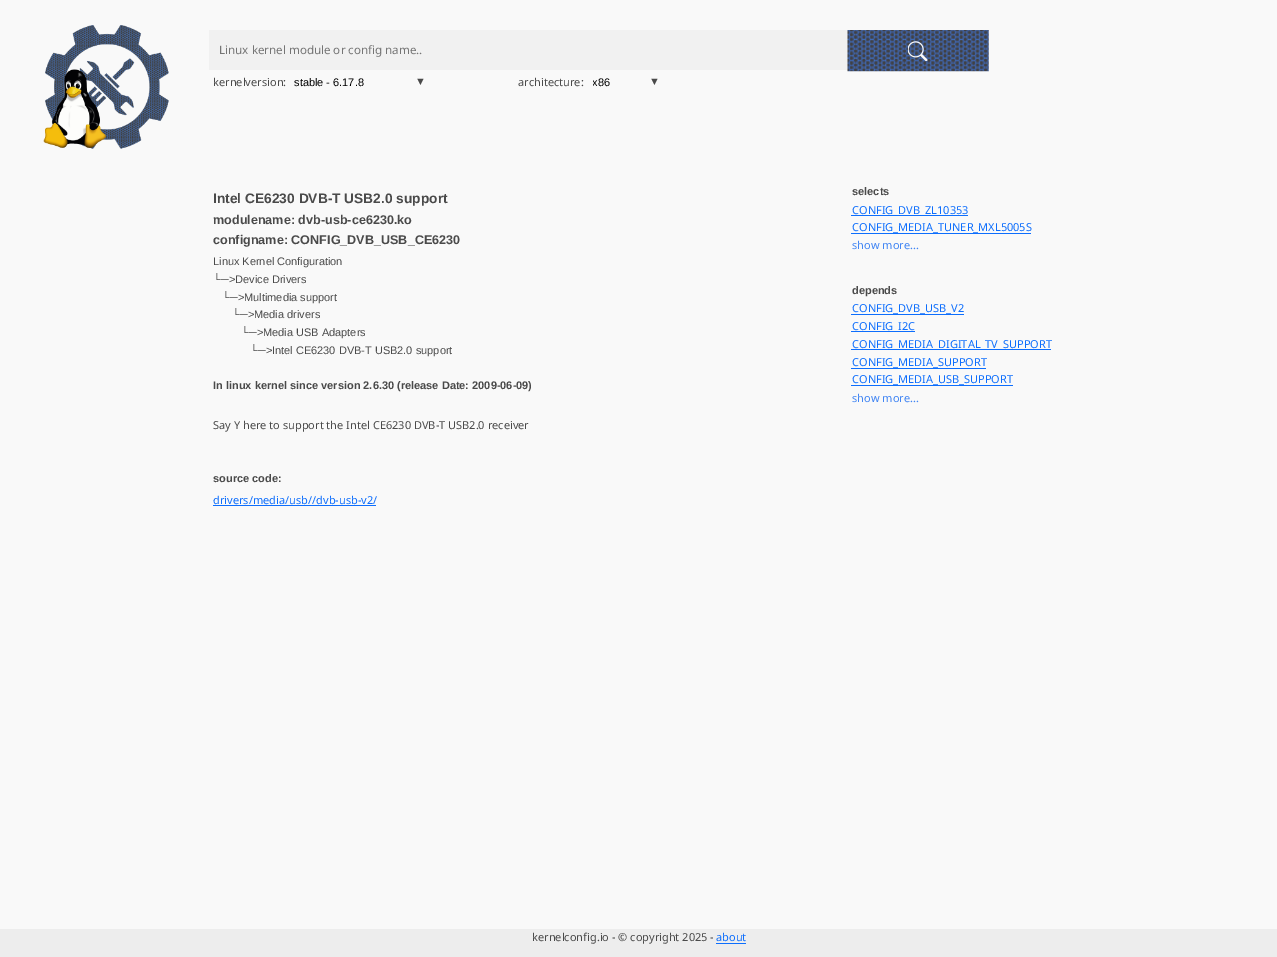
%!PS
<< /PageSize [1277 957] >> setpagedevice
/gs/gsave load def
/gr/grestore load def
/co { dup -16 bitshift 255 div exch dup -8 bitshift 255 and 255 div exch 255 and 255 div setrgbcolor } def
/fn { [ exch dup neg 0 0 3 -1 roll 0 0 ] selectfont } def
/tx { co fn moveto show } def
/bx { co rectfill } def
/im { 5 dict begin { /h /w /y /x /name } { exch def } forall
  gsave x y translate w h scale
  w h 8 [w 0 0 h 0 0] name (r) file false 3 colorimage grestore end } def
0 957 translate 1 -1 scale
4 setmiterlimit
0 0 1277 957 16#F9F9F9 bx
(media/1.raw) 43 25 126 124 im
209 30 639 40 16#F1F1F1 bx
(media/2.raw) 847 30 142 42 im
(media/3.raw) 908 41 20 20 im
213 505 163 1 16#0D6EFD bx
851 215 117 1 16#0D6EFD bx
851 233 180 1 16#0D6EFD bx
851 314 113 1 16#0D6EFD bx
851 331 64 1 16#0D6EFD bx
851 349 200 1 16#0D6EFD bx
851 368 135 1 16#0D6EFD bx
851 385 162 1 16#0D6EFD bx
0 929 1277 28 16#EDEDED bx
716 943 30 1 16#0D6EFD bx
(Linux kernel module or config name..) 219 54 /NotoSans-Regular 11.6 16#757575 tx
(kernelversion:) 213 86 /NotoSans-Regular 11 16#4A4A4A tx
(stable - 6.17.8) 294 86 /LiberationSans-Regular 11 16#000000 tx
(▼) 415 85 /LiberationSans-Italic 11 16#4A4A4A tx
(architecture:) 518 86 /NotoSans-Regular 11 16#4A4A4A tx
gs
593 76 61 14 rectclip
(x86) 592 86 /LiberationSans-Regular 11 16#000000 tx
gr
(▼) 649 85 /LiberationSans-Italic 11 16#4A4A4A tx
(Intel CE6230 DVB-T USB2.0 support) 213 203 /LiberationSans-Bold 13.75 16#4A4A4A tx
(modulename: dvb-usb-ce6230.ko) 213 224 /LiberationSans-Bold 12.6 16#4A4A4A tx
(configname: CONFIG_DVB_USB_CE6230) 213 244 /LiberationSans-Bold 12.6 16#4A4A4A tx
(Linux Kernel Configuration) 213 265 /LiberationSans-Regular 11 16#4A4A4A tx
(└─>Device Drivers) 213 283 /LiberationSans-Regular 11 16#4A4A4A tx
(└─>Multimedia support) 222 301 /LiberationSans-Regular 11 16#4A4A4A tx
(└─>Media drivers) 232 318 /LiberationSans-Regular 11 16#4A4A4A tx
(└─>Media USB Adapters) 241 336 /LiberationSans-Regular 11 16#4A4A4A tx
(└─>Intel CE6230 DVB-T USB2.0 support) 250 354 /LiberationSans-Regular 11 16#4A4A4A tx
(In linux kernel since version 2.6.30 \(release Date: 2009-06-09\)) 213 389 /LiberationSans-Bold 11 16#4A4A4A tx
(Say Y here to support the Intel CE6230 DVB-T USB2.0 receiver) 213 429 /NotoSans-Regular 11 16#4A4A4A tx
(source code:) 213 482 /LiberationSans-Bold 11 16#4A4A4A tx
(drivers/media/usb//dvb-usb-v2/) 213 504 /NotoSans-Regular 11 16#0D6EFD tx
(selects) 852 195 /LiberationSans-Bold 11 16#4A4A4A tx
(CONFIG_DVB_ZL10353) 852 214 /NotoSans-Regular 11 16#0D6EFD tx
(CONFIG_MEDIA_TUNER_MXL5005S) 852 231 /NotoSans-Regular 11 16#0D6EFD tx
(show more...) 852 249 /NotoSans-Regular 11 16#4286F4 tx
(depends) 852 294 /LiberationSans-Bold 11 16#4A4A4A tx
(CONFIG_DVB_USB_V2) 852 312 /NotoSans-Regular 11 16#0D6EFD tx
(CONFIG_I2C) 852 330 /NotoSans-Regular 11 16#0D6EFD tx
(CONFIG_MEDIA_DIGITAL_TV_SUPPORT) 852 348 /NotoSans-Regular 11 16#0D6EFD tx
(CONFIG_MEDIA_SUPPORT) 852 366 /NotoSans-Regular 11 16#0D6EFD tx
(CONFIG_MEDIA_USB_SUPPORT) 852 383 /NotoSans-Regular 11 16#0D6EFD tx
(show more...) 852 402 /NotoSans-Regular 11 16#4286F4 tx
(kernelconfig.io - © copyright 2025 -) 532 941 /NotoSans-Regular 11 16#4A4A4A tx
(about) 716 941 /NotoSans-Regular 11 16#0D6EFD tx
showpage
